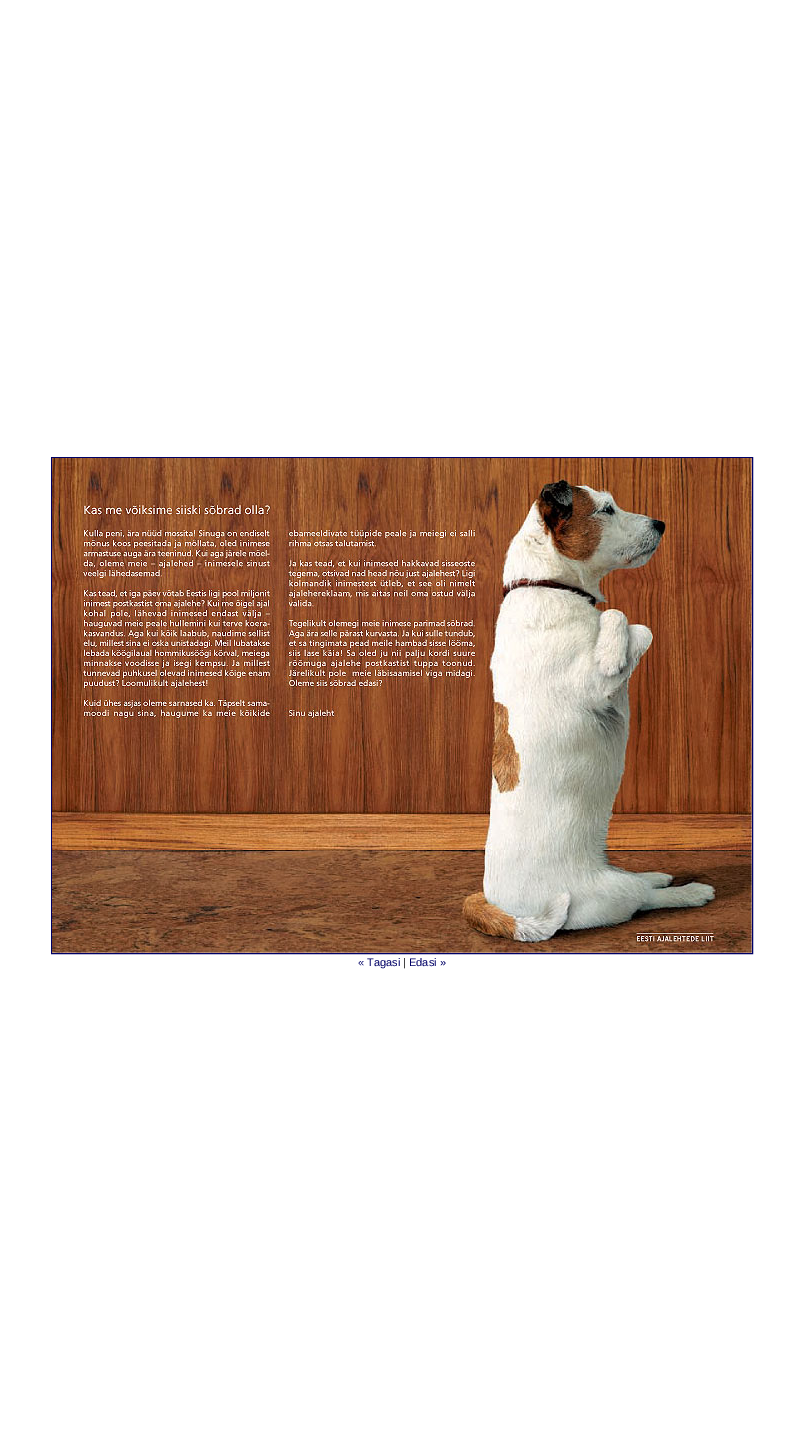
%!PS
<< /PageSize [803 1429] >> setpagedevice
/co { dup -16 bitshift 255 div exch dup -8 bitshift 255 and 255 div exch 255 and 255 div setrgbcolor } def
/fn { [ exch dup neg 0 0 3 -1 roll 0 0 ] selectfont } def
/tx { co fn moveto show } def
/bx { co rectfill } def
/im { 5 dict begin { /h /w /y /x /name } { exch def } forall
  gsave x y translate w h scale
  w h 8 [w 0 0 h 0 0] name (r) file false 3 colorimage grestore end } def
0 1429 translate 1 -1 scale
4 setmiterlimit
0 0 803 1429 16#FFFFFF bx
16#000066 co
51.5 457.5 701 496 rectstroke
(media/1.raw) 52 458 700 495 im
(« Tagasi) 358 966 /LiberationSans-Regular 11 16#000066 tx
(|) 403 966 /LiberationSans-Regular 11 16#000000 tx
(Edasi ») 409 966 /LiberationSans-Regular 11 16#000066 tx
showpage
